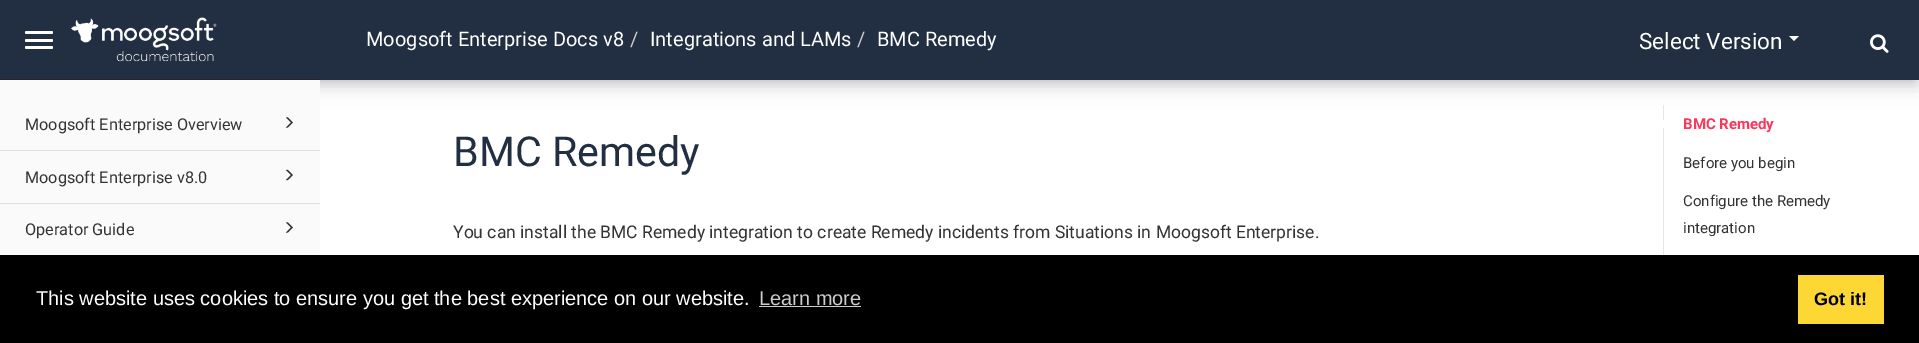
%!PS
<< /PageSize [1919 343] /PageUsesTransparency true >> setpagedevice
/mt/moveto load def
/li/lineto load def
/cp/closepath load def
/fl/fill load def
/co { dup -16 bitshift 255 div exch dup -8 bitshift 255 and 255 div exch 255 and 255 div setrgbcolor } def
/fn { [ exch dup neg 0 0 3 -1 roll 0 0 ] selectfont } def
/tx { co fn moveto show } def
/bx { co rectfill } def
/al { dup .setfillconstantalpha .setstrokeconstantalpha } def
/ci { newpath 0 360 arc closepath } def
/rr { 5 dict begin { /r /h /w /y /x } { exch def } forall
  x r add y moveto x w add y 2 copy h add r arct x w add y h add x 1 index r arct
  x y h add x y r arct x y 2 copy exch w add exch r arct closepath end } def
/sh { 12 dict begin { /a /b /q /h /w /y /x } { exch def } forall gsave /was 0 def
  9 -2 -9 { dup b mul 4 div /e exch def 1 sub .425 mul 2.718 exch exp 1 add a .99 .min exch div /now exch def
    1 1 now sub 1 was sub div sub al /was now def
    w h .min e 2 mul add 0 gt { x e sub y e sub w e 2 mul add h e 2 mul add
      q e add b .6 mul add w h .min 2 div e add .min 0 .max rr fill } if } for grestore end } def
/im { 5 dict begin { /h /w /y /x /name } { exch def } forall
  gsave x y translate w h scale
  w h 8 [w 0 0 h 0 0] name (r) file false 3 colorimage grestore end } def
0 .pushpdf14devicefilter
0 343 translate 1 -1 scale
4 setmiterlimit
0 0 1919 343 16#FFFFFF bx
16#000000 co
6 15 1908 68 0 6 .15 sh
1663 105 1 150 16#E6E6E6 bx
16#000000 co
0 5 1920 80 0 11 .12 sh
0 80 320 175 16#FAFAFA bx
0 0 320 79 16#222E41 bx
0 79 320 1 16#252525 bx
16#FFFFFF co
25 31 28 3 1.5 rr fl
25 39 28 3 1.5 rr fl
25 46 28 3 1.5 rr fl
(media/1.raw) 71 17 146 45 im
0 150 320 1 16#E0E0E0 bx
(media/2.raw) 285 117 8 11 im
0 203 320 1 16#E0E0E0 bx
(media/3.raw) 286 169 7 12 im
(media/2.raw) 285 222 8 11 im
320 0 1599 80 16#222E41 bx
16#FFFFFF co
1789 36 mt 1799 36 li 1794 41 li cp fl
(media/4.raw) 1870 34 19 19 im
1664 124 4 ci fl
0 255 1919 88 16#000000 bx
759 306 102 1 16#CCCCCC bx
1798 275 86 49 16#FDD835 bx
(Moogsoft Enterprise Overview) 25 130 /Roboto-Regular 16.25 16#333333 tx
(Moogsoft Enterprise v8.0) 25 183 /Roboto-Regular 16.25 16#333333 tx
(Operator Guide) 25 235 /Roboto-Regular 16.25 16#333333 tx
(Moogsoft Enterprise Docs v8) 366 46 /Roboto-Regular 20 16#FFFFFF tx
(/) 630 46 /Roboto-Regular 20 16#CCCCCC tx
(Integrations and LAMs) 650 46 /Roboto-Regular 20 16#FFFFFF tx
(/) 857 46 /Roboto-Regular 20 16#CCCCCC tx
(BMC Remedy) 877 46 /Roboto-Regular 20 16#FFFFFF tx
(Select Version) 1639 49 /Roboto-Regular 22.5 16#FFFFFF tx
(BMC Remedy) 453 166 /Roboto-Regular 41.25 16#222E41 tx
(You can install the BMC Remedy integration to create Remedy incidents from Situations in Moogsoft Enterprise.) 453 238 /Roboto-Regular 17.5 16#333333 tx
(BMC Remedy) 1683 129 /Roboto-Bold 15 16#FA385D tx
(Before you begin) 1683 168 /Roboto-Regular 15 16#333333 tx
(Configure the Remedy) 1683 206 /Roboto-Regular 15 16#333333 tx
(integration) 1683 233 /Roboto-Regular 15 16#333333 tx
(This website uses cookies to ensure you get the best experience on our website.) 36 305 /LiberationSans-Regular 20 16#FFFFFF tx
(Learn more) 759 305 /LiberationSans-Regular 20 16#CCCCCC tx
(Got it!) 1814 305 /LiberationSans-Bold 18 16#000000 tx
.poppdf14devicefilter showpage
